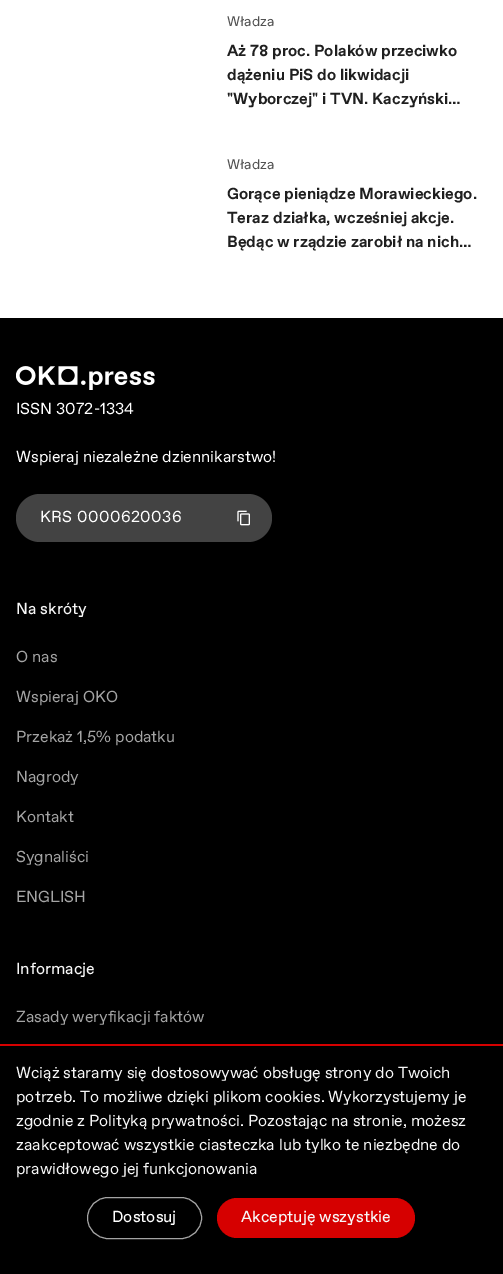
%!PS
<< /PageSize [503 1274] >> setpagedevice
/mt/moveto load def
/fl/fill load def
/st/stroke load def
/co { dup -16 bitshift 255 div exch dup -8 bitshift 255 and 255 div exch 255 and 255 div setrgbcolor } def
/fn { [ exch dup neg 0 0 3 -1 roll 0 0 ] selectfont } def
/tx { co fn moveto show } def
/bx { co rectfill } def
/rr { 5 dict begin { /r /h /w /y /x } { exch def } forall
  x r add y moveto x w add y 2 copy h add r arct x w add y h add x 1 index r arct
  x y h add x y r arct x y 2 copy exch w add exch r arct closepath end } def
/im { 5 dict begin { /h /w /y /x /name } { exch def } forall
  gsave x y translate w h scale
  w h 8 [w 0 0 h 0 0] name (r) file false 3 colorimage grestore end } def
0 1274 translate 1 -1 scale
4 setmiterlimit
0 0 503 1274 16#FFFFFF bx
0 318 503 726 16#000000 bx
(media/1.raw) 16 366 139 24 im
16#434343 co
16 494 256 48 24 rr fl
(media/2.raw) 237 510 13 16 im
0 1046 503 228 16#000000 bx
0 1044 503 2 16#D60000 bx
16#A4A4A4 co
87.5 1197.5 114 41 20.5 rr st
16#D60000 co
217 1198 198 40 20 rr fl
(Władza) 227 26 /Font-Light 14 16#515151 tx
(Aż 78 proc. Polaków przeciwko) 227 56 /Font-Bold 16 16#1F1F1F tx
(dążeniu PiS do likwidacji) 227 80 /Font-Bold 16 16#1F1F1F tx
("Wyborczej" i TVN. Kaczyński…) 227 104 /Font-Bold 16 16#1F1F1F tx
(Władza) 227 169 /Font-Light 14 16#515151 tx
(Gorące pieniądze Morawieckiego.) 227 199 /Font-Bold 16 16#1F1F1F tx
(Teraz działka, wcześniej akcje.) 227 223 /Font-Bold 16 16#1F1F1F tx
(Będąc w rządzie zarobił na nich…) 227 247 /Font-Bold 16 16#1F1F1F tx
(ISSN 3072-1334) 16 414 /Font-Light 16 16#FFFFFF tx
(Wspieraj niezależne dziennikarstwo!) 16 462 /Font-Light 16 16#FFFFFF tx
40 522 mt .4 0 (KRS 0000620036) ashow
(Na skróty) 16 614 /Font-Regular 16 16#F7F7F7 tx
(O nas) 16 662 /Font-Light 16 16#A4A4A4 tx
(Wspieraj OKO) 16 702 /Font-Light 16 16#A4A4A4 tx
(Przekaż 1,5% podatku) 16 742 /Font-Light 16 16#A4A4A4 tx
(Nagrody) 16 782 /Font-Light 16 16#A4A4A4 tx
(Kontakt) 16 822 /Font-Light 16 16#A4A4A4 tx
(Sygnaliści) 16 862 /Font-Light 16 16#A4A4A4 tx
(ENGLISH) 16 902 /Font-Light 16 16#A4A4A4 tx
(Informacje) 16 974 /Font-Regular 16 16#F7F7F7 tx
(Zasady weryfikacji faktów) 16 1022 /Font-Light 16 16#A4A4A4 tx
(Wciąż staramy się dostosowywać obsługę strony do Twoich) 16 1078 /Font-Light 16 16#F7F7F7 tx
(potrzeb. To możliwe dzięki plikom cookies. Wykorzystujemy je) 16 1102 /Font-Light 16 16#F7F7F7 tx
(zgodnie z Polityką prywatności. Pozostając na stronie, możesz) 16 1126 /Font-Light 16 16#F7F7F7 tx
(zaakceptować wszystkie ciasteczka lub tylko te niezbędne do) 16 1150 /Font-Light 16 16#F7F7F7 tx
(prawidłowego jej funkcjonowania) 16 1174 /Font-Light 16 16#F7F7F7 tx
(Dostosuj) 112 1222 /Font-Regular 16 16#FFFFFF tx
(Akceptuję wszystkie) 241 1222 /Font-Regular 16 16#F7F7F7 tx
showpage
